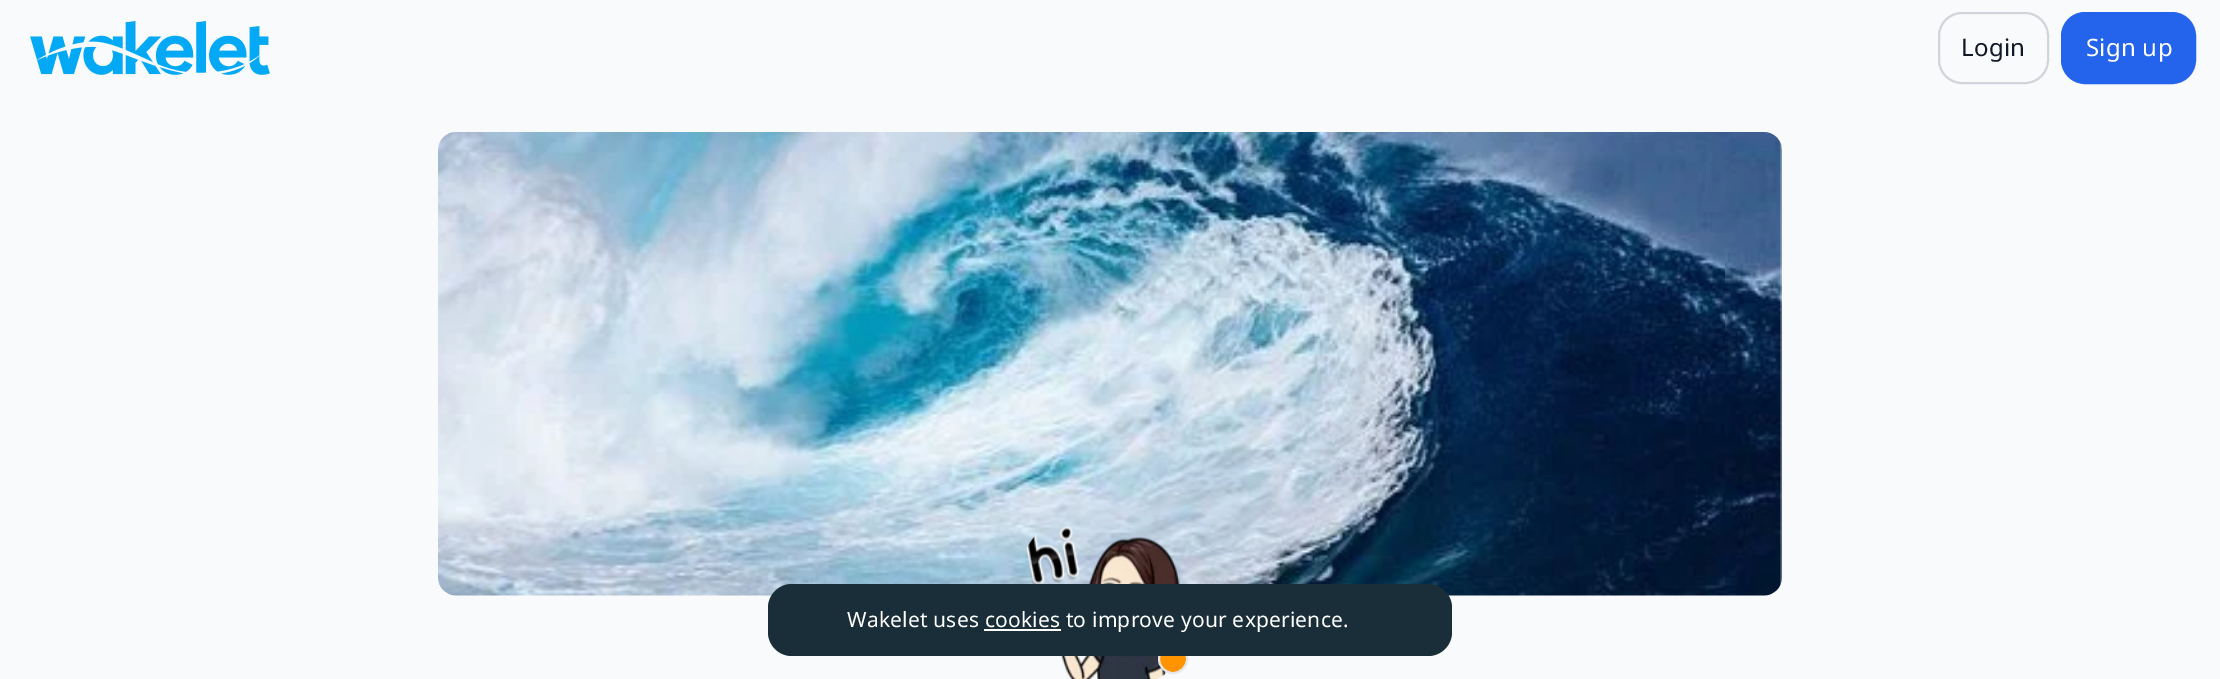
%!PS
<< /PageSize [2220 679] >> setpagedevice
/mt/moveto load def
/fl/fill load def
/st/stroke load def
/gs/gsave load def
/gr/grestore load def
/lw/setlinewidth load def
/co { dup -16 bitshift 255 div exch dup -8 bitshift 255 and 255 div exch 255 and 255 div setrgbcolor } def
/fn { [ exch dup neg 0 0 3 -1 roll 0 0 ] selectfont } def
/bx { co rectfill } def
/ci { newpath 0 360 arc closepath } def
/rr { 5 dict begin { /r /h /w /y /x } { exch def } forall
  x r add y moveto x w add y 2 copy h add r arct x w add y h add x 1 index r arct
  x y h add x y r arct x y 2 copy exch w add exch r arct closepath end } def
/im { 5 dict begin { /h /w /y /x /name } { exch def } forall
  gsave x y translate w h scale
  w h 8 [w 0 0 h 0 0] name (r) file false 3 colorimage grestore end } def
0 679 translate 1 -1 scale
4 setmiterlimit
0 0 2220 679 16#F9FAFB bx
(media/1.raw) 30 21 240 54 im
16#D1D5DB co
2 lw
1939 13 109 70 23 rr st
16#2463EB co
2062 13 133 70 23 rr gs fl gr
st
(media/2.raw) 438 132 1344 464 im
(media/3.raw) 1026 526 154 153 im
16#FF9300 co
1173 659 14 ci gs fl gr
16#E5E7EB co
st
16#192E38 co
768 584 684 72 24 rr fl
984 629 77 2 16#FFFFFF bx
/NotoSans-Regular 24 fn
16#111827 co
1961 56 mt .25 0 (Login) ashow
16#FFFFFF co
2086 56 mt .25 0 (Sign up) ashow
/NotoSans-Regular 21 fn
847 627 mt .2 0 (Wakelet uses cookies to improve your experience.) ashow
showpage
